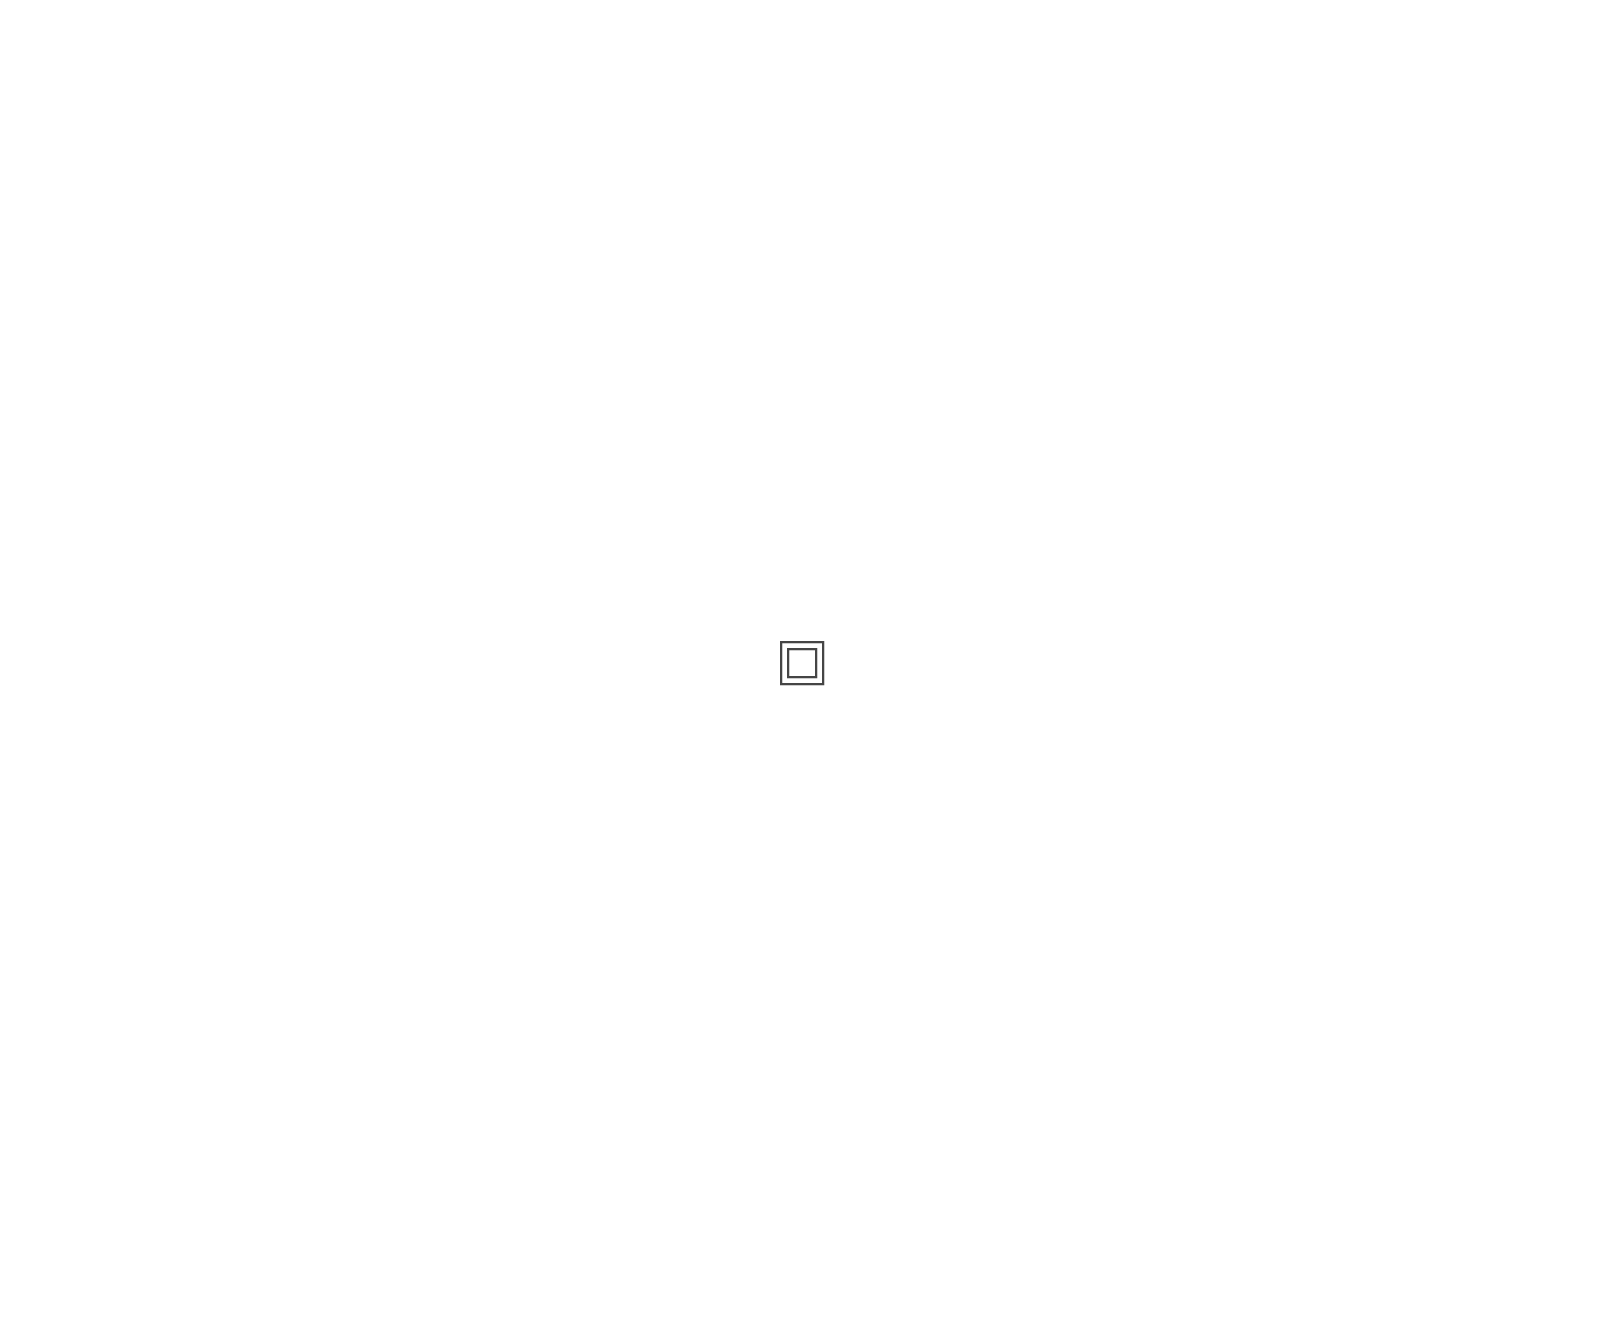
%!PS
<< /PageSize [1607 1330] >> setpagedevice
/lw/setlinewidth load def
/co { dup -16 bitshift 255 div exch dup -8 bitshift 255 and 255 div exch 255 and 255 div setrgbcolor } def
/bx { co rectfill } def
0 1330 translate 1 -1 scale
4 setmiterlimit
0 0 1607 1330 16#FFFFFF bx
16#454545 co
2 lw
781 642 42 42 rectstroke
788 649 28 28 rectstroke
showpage
